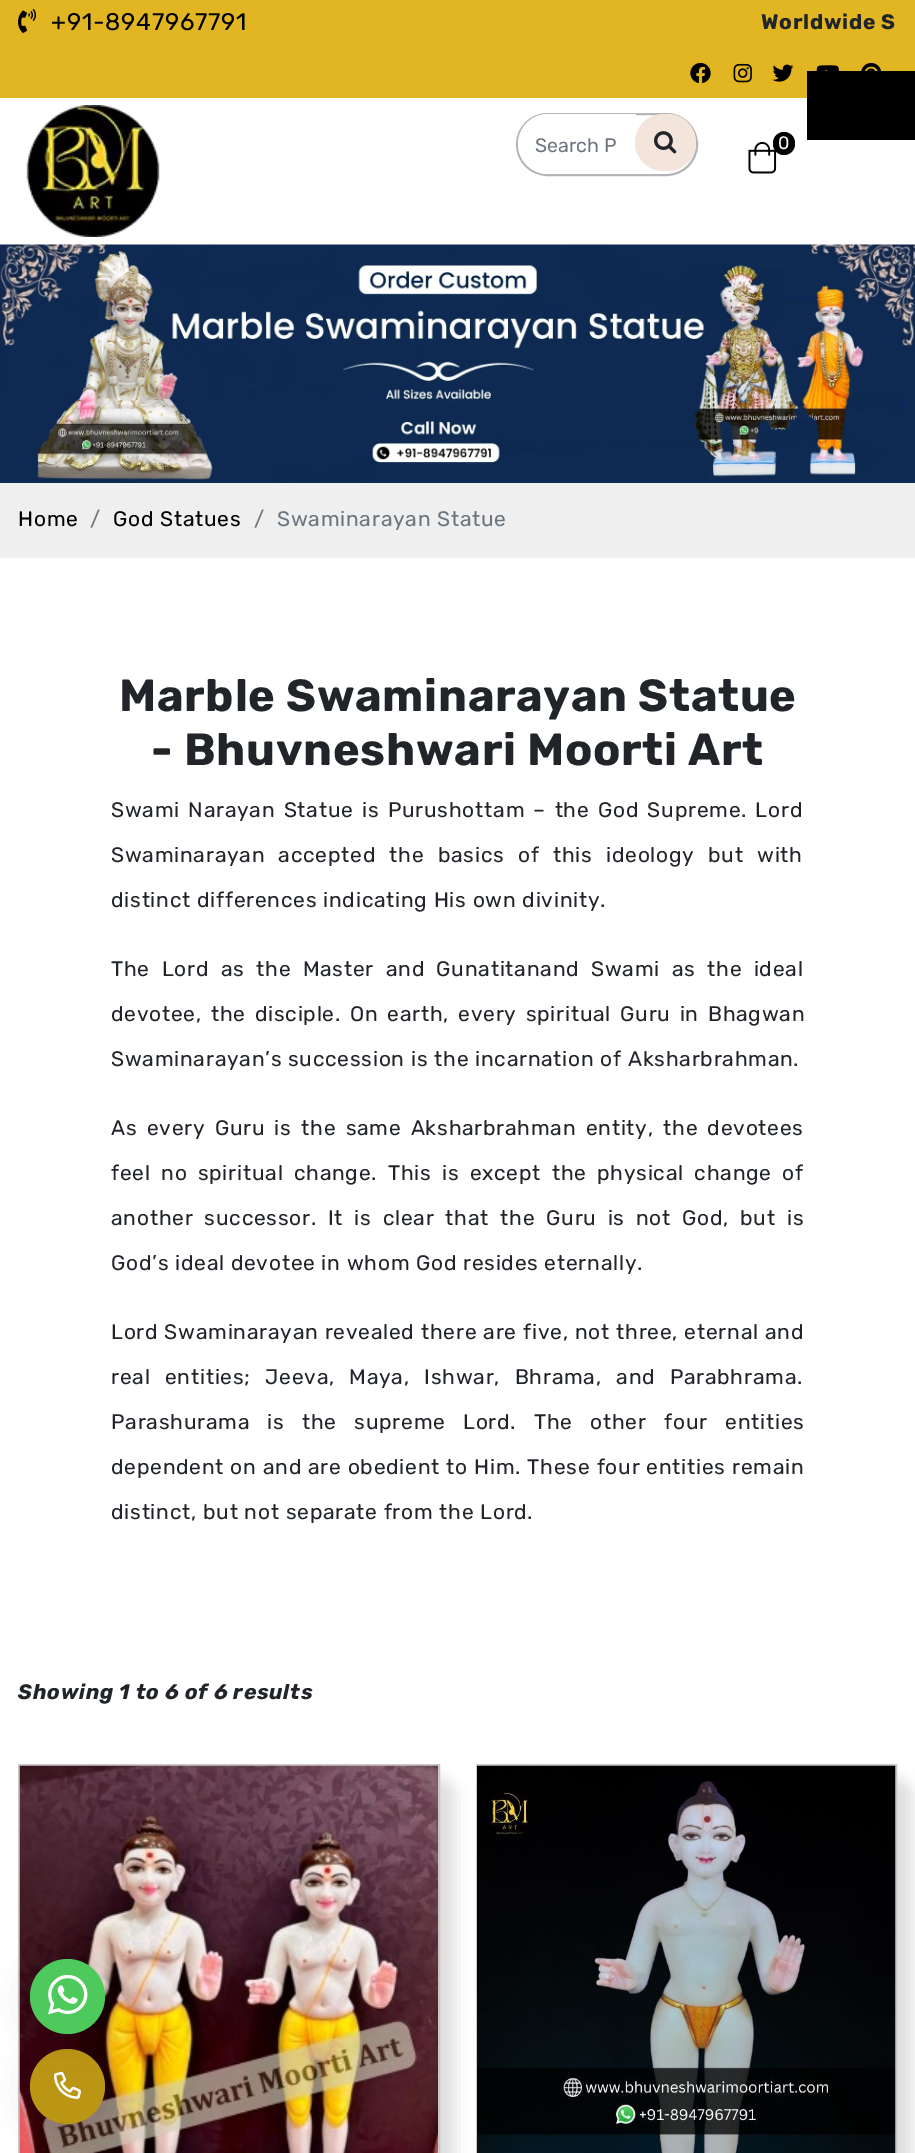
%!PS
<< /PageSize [915 2153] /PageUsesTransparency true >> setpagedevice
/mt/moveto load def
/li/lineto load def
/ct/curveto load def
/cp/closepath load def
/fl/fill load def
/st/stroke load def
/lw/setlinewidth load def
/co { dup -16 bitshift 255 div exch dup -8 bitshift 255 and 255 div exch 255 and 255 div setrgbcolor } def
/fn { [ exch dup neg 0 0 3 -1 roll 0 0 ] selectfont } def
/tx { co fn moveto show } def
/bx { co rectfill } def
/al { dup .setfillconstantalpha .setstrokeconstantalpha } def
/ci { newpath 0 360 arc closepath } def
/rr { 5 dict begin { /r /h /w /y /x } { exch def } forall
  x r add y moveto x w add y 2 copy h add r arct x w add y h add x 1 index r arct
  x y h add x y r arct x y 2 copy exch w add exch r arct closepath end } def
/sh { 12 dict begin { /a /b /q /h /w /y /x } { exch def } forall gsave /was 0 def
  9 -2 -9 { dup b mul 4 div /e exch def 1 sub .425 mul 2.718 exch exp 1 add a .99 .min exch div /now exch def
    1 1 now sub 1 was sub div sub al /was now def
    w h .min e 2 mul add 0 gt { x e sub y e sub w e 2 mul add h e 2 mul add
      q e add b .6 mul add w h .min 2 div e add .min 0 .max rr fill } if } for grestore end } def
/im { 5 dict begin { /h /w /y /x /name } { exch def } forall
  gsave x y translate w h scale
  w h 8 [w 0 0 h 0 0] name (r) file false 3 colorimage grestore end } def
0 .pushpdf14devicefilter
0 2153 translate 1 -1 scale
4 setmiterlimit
0 0 915 2153 16#FFFFFF bx
0 0 915 98 16#E2B622 bx
(media/1.raw) 18 9 18 24 im
(media/2.raw) 690 63 21 21 im
(media/3.raw) 733 63 19 20 im
(media/4.raw) 772 64 22 18 im
(media/5.raw) 816 65 23 6 im
(media/6.raw) 861 63 21 8 im
807 71 108 69 16#000000 bx
(media/7.raw) 26 105 134 132 im
16#B5B5B5 co
2 lw
517 114 180 61 30.5 rr st
16#FFFFFF co
548 114 mt 636 114 li 636 174 li 548 174 li 531.5 174 518 160.5 518 144 ct 518 127.5 531.5 114 548 114 ct cp fl
16#F3E4DC co
635 114 61 57 28.5 rr fl
(media/8.raw) 654 131 23 23 im
(media/9.raw) 748 141 29 33 im
16#000000 co
773 132 22 23 11 rr fl
(media/10.raw) 0 244 915 239 im
0 483 915 75 16#EFEFEF bx
16#DEDEDE co
33 1779 422 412 15 7.5 1 sh
16#CCC7C7 co
19 1765 420 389 rectstroke
(media/11.raw) 19 1765 419 388 im
16#DEDEDE co
491 1779 421 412 15 7.5 1 sh
16#CCC7C7 co
477 1765 419 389 rectstroke
(media/12.raw) 477 1765 419 388 im
16#0C002E co
30 2054 75 75 37.5 17 .15 sh
16#BB9615 co
67.5 2086.5 37.5 ci fl
(media/14.raw) 54 2071 27 28 im
16#0C002E co
30 1964 75 75 37.5 17 .15 sh
16#4EC95C co
67.5 1996.5 37.5 ci fl
(media/13.raw) 48 1974 40 41 im
/Rubik-Regular 24 fn
16#000000 co
51 30 mt .75 0 (+91-8947967791) ashow
/Rubik-Bold 21 fn
16#212529 co
761 29 mt .75 0 (Worldwide S) ashow
(Search P) 535 152 /Rubik-Regular 19.5 16#6C757D tx
/Rubik-Regular 18 fn
16#FFFFFF co
778 149 mt .75 0 (0) ashow
/Rubik-Regular 21 fn
16#000000 co
18 526 mt .75 0 (Home) ashow
16#6C757D co
90 526 mt .75 0 (/) ashow
16#000000 co
113 526 mt .75 0 (God Statues) ashow
16#6C757D co
254 526 mt .75 0 (/) ashow
277 526 mt .75 0 (Swaminarayan Statue) ashow
/Rubik-Bold 45 fn
16#212529 co
119 711 mt .75 0 (Marble Swaminarayan Statue) ashow
151 765 mt .75 0 (- Bhuvneshwari Moorti Art) ashow
/Rubik-Regular 21 fn
111 817 mt 2.5 0 32 .75 0 (Swami Narayan Statue is Purushottam – the God Supreme. Lord) awidthshow
111 862 mt 7.5 0 32 .75 0 (Swaminarayan accepted the basics of this ideology but with) awidthshow
111 907 mt .75 0 (distinct differences indicating His own divinity.) ashow
111 976 mt 5.75 0 32 .75 0 (The Lord as the Master and Gunatitanand Swami as the ideal) awidthshow
111 1021 mt 3 0 32 .75 0 (devotee, the disciple. On earth, every spiritual Guru in Bhagwan) awidthshow
111 1066 mt .75 0 (Swaminarayan’s succession is the incarnation of Aksharbrahman.) ashow
111 1135 mt 3.5 0 32 .75 0 (As every Guru is the same Aksharbrahman entity, the devotees) awidthshow
111 1180 mt 4.5 0 32 .75 0 (feel no spiritual change. This is except the physical change of) awidthshow
111 1225 mt 5.1 0 32 .75 0 (another successor. It is clear that the Guru is not God, but is) awidthshow
111 1270 mt .75 0 (God’s ideal devotee in whom God resides eternally.) ashow
111 1339 mt .25 0 32 .75 0 (Lord Swaminarayan revealed there are five, not three, eternal and) awidthshow
111 1384 mt 8.5 0 32 .75 0 (real entities; Jeeva, Maya, Ishwar, Bhrama, and Parabhrama.) awidthshow
111 1429 mt 11.5 0 32 .75 0 (Parashurama is the supreme Lord. The other four entities) awidthshow
111 1474 mt .25 0 32 .75 0 (dependent on and are obedient to Him. These four entities remain) awidthshow
111 1519 mt .75 0 (distinct, but not separate from the Lord.) ashow
/Rubik-BoldItalic 21 fn
18 1699 mt .75 0 (Showing 1 to 6 of 6 results) ashow
.poppdf14devicefilter showpage
